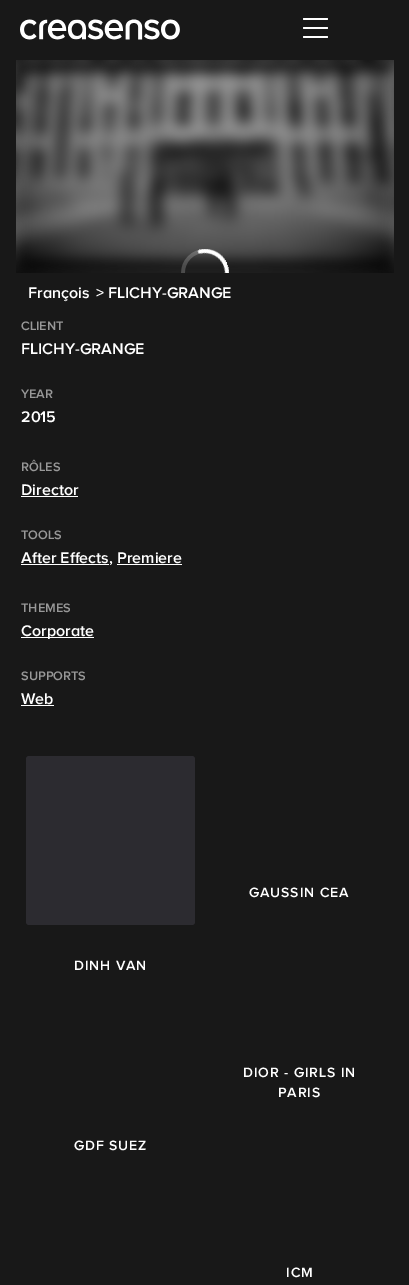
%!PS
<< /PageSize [409 1285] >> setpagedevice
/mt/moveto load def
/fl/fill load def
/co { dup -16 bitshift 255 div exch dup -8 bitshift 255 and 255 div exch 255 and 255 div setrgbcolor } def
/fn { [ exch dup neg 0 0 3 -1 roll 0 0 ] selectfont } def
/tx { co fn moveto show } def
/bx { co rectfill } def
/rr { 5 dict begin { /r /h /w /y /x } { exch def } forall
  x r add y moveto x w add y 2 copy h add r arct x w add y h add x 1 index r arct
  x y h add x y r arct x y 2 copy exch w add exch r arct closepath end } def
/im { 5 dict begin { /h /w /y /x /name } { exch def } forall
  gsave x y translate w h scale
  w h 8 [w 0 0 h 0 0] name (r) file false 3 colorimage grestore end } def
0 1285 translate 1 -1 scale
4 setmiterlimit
0 0 409 1285 16#181818 bx
(media/1.raw) 20 19 160 21 im
16#FFFFFF co
303 18 25 2 1 rr fl
303 27 25 2 1 rr fl
303 36 25 2 1 rr fl
(media/2.raw) 16 60 378 213 im
21 496 57 1 16#FFFFFF bx
21 564 88 1 16#FFFFFF bx
117 564 65 1 16#FFFFFF bx
21 637 73 1 16#FFFFFF bx
21 705 33 1 16#FFFFFF bx
16#2C2B30 co
26 756 169 169 3 rr fl
(François) 28 298 /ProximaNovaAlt-SemiBold 16 16#FFFFFF tx
(> FLICHY-GRANGE) 96 298 /ProximaNovaAlt-SemiBold 16 16#FFFFFF tx
(CLIENT) 21 330 /ProximaNovaAlt-SemiBold 12.75 16#989898 tx
(FLICHY-GRANGE) 21 354 /ProximaNovaAlt-SemiBold 16 16#FFFFFF tx
(YEAR) 21 398 /ProximaNovaAlt-SemiBold 12.75 16#989898 tx
(2015) 21 422 /ProximaNovaAlt-SemiBold 16 16#FFFFFF tx
(RÔLES) 21 471 /ProximaNovaAlt-SemiBold 12.75 16#989898 tx
(Director) 21 495 /ProximaNovaAlt-SemiBold 16 16#FFFFFF tx
(TOOLS) 21 539 /ProximaNovaAlt-SemiBold 12.75 16#989898 tx
(After Effects, Premiere) 21 563 /ProximaNovaAlt-SemiBold 16 16#FFFFFF tx
(THEMES) 21 612 /ProximaNovaAlt-SemiBold 12.75 16#989898 tx
(Corporate) 21 636 /ProximaNovaAlt-SemiBold 16 16#FFFFFF tx
(SUPPORTS) 21 680 /ProximaNovaAlt-SemiBold 12.75 16#989898 tx
(Web) 21 704 /ProximaNovaAlt-SemiBold 16 16#FFFFFF tx
/ProximaNovaAlt-SemiBold 14 fn
249 897 mt .9 0 (GAUSSIN CEA) ashow
74 970 mt .9 0 (DINH VAN) ashow
243 1077 mt .9 0 (DIOR - GIRLS IN) ashow
278 1097 mt .9 0 (PARIS) ashow
74 1150 mt .9 0 (GDF SUEZ) ashow
286 1277 mt .9 0 (ICM) ashow
showpage
